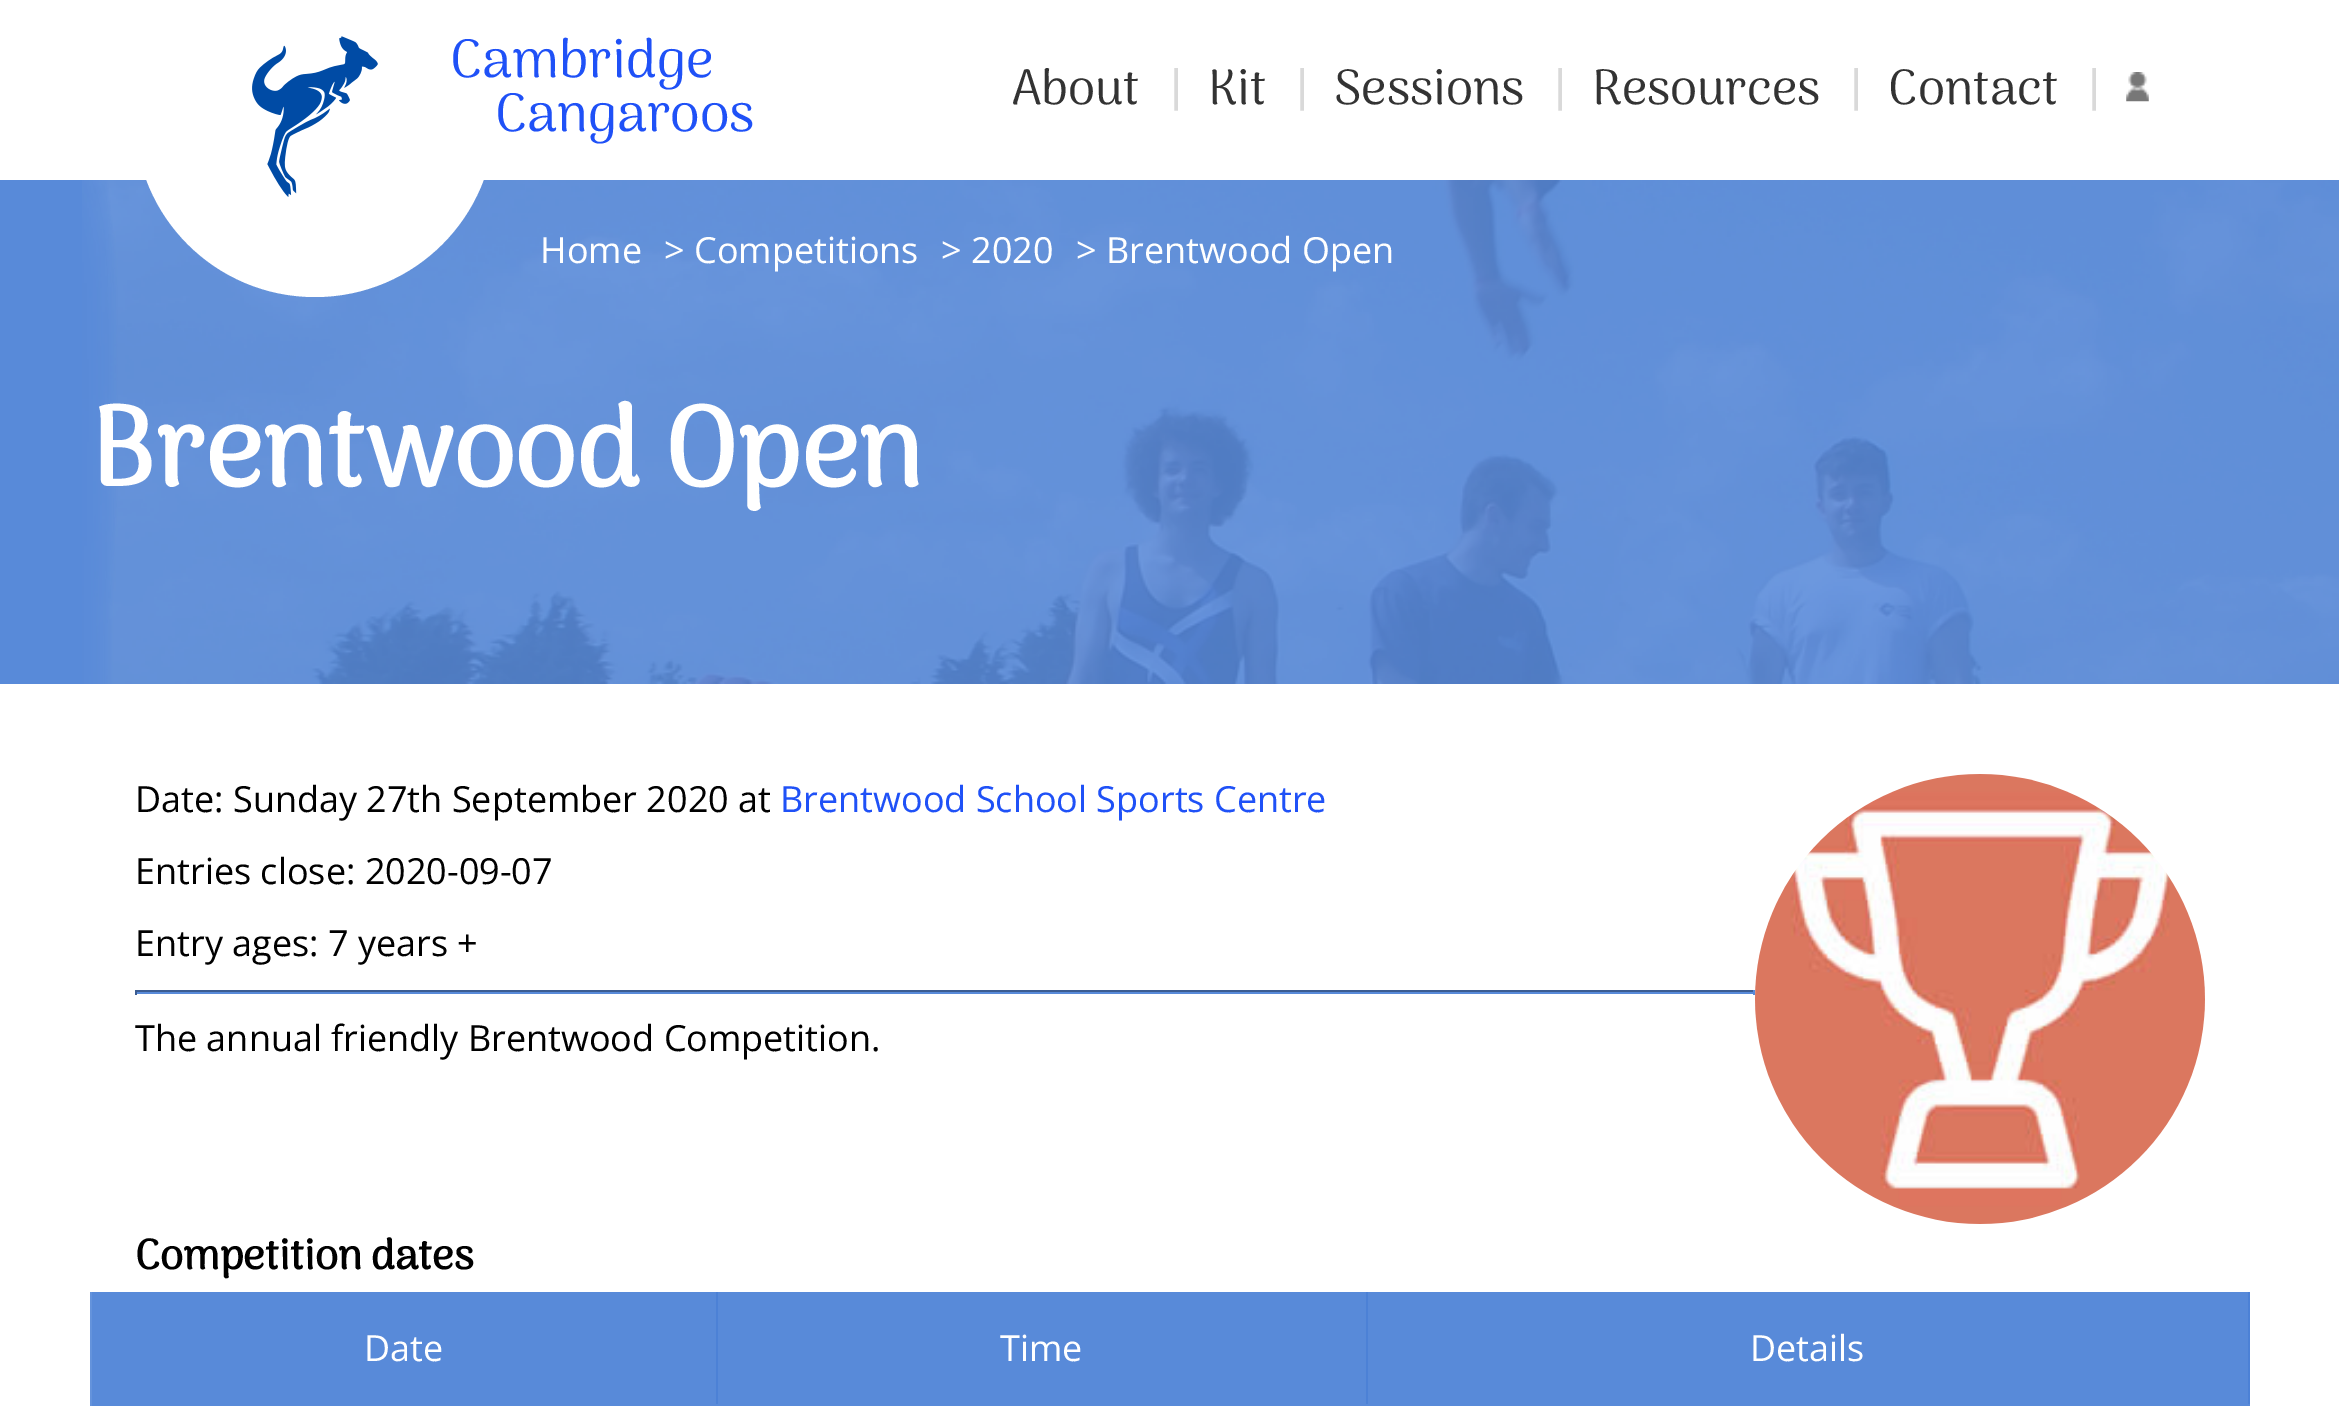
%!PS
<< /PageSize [2339 1419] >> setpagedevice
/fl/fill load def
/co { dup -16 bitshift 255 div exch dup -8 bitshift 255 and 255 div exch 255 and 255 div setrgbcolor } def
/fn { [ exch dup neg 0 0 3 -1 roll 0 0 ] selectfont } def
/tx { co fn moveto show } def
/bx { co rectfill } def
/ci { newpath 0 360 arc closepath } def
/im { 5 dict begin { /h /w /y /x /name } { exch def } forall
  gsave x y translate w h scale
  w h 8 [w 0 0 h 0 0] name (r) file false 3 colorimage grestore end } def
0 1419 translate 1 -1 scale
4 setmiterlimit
0 0 2339 1419 16#FFFFFF bx
0 180 2339 504 16#588AD9 bx
(media/3.raw) 82 180 2257 504 im
16#FFFFFF co
315 117 180 ci fl
(media/1.raw) 252 36 126 161 im
(media/2.raw) 2126 72 23 30 im
(media/4.raw) 1755 774 450 450 im
135 990 1620 2 16#3B5C91 bx
1753 990 2 5 16#588AD9 bx
135 992 1620 2 16#588AD9 bx
135 990 2 5 16#3B5C91 bx
92 1292 2156 112 16#588AD9 bx
2248 1292 2 114 16#4C81D6 bx
1366 1404 884 2 16#588AD9 bx
1366 1292 2 114 16#4C81D6 bx
716 1404 652 2 16#588AD9 bx
716 1292 2 114 16#4C81D6 bx
90 1404 628 2 16#588AD9 bx
90 1292 2 114 16#6493DC bx
(Cambridge) 450 77 /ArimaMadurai-Regular 54 16#1F51F7 tx
(Cangaroos) 495 131 /ArimaMadurai-Regular 54 16#1F51F7 tx
(About) 1012 104 /ArimaMadurai-Regular 49.5 16#333333 tx
(|) 1169 104 /ArimaMadurai-Regular 49.5 16#D9D9D9 tx
(Kit) 1208 104 /ArimaMadurai-Regular 49.5 16#333333 tx
(|) 1295 104 /ArimaMadurai-Regular 49.5 16#D9D9D9 tx
(Sessions) 1334 104 /ArimaMadurai-Regular 49.5 16#333333 tx
(|) 1553 104 /ArimaMadurai-Regular 49.5 16#D9D9D9 tx
(Resources) 1592 104 /ArimaMadurai-Regular 49.5 16#333333 tx
(|) 1849 104 /ArimaMadurai-Regular 49.5 16#D9D9D9 tx
(Contact) 1888 104 /ArimaMadurai-Regular 49.5 16#333333 tx
(|) 2087 104 /ArimaMadurai-Regular 49.5 16#D9D9D9 tx
(Home) 540 263 /OpenSans-Regular 36 16#FFFFFF tx
(> Competitions) 664 263 /OpenSans-Regular 36 16#FFFFFF tx
(> 2020) 941 263 /OpenSans-Regular 36 16#FFFFFF tx
(> Brentwood Open) 1076 263 /OpenSans-Regular 36 16#FFFFFF tx
(Brentwood Open) 90 486 /ArimaMadurai-Bold 112.5 16#FFFFFF tx
(Date: Sunday 27th September 2020 at) 135 812 /OpenSans-Regular 36 16#000000 tx
(Brentwood School Sports Centre) 780 812 /OpenSans-Regular 36 16#1F51F7 tx
(Entries close: 2020-09-07) 135 884 /OpenSans-Regular 36 16#000000 tx
(Entry ages: 7 years +) 135 956 /OpenSans-Regular 36 16#000000 tx
(The annual friendly Brentwood Competition.) 135 1051 /OpenSans-Regular 36 16#000000 tx
(Competition dates) 135 1269 /ArimaMadurai-Bold 42 16#000000 tx
(Date) 364 1361 /OpenSans-Regular 36 16#FFFFFF tx
(Time) 1000 1361 /OpenSans-Regular 36 16#FFFFFF tx
(Details) 1750 1361 /OpenSans-Regular 36 16#FFFFFF tx
showpage
